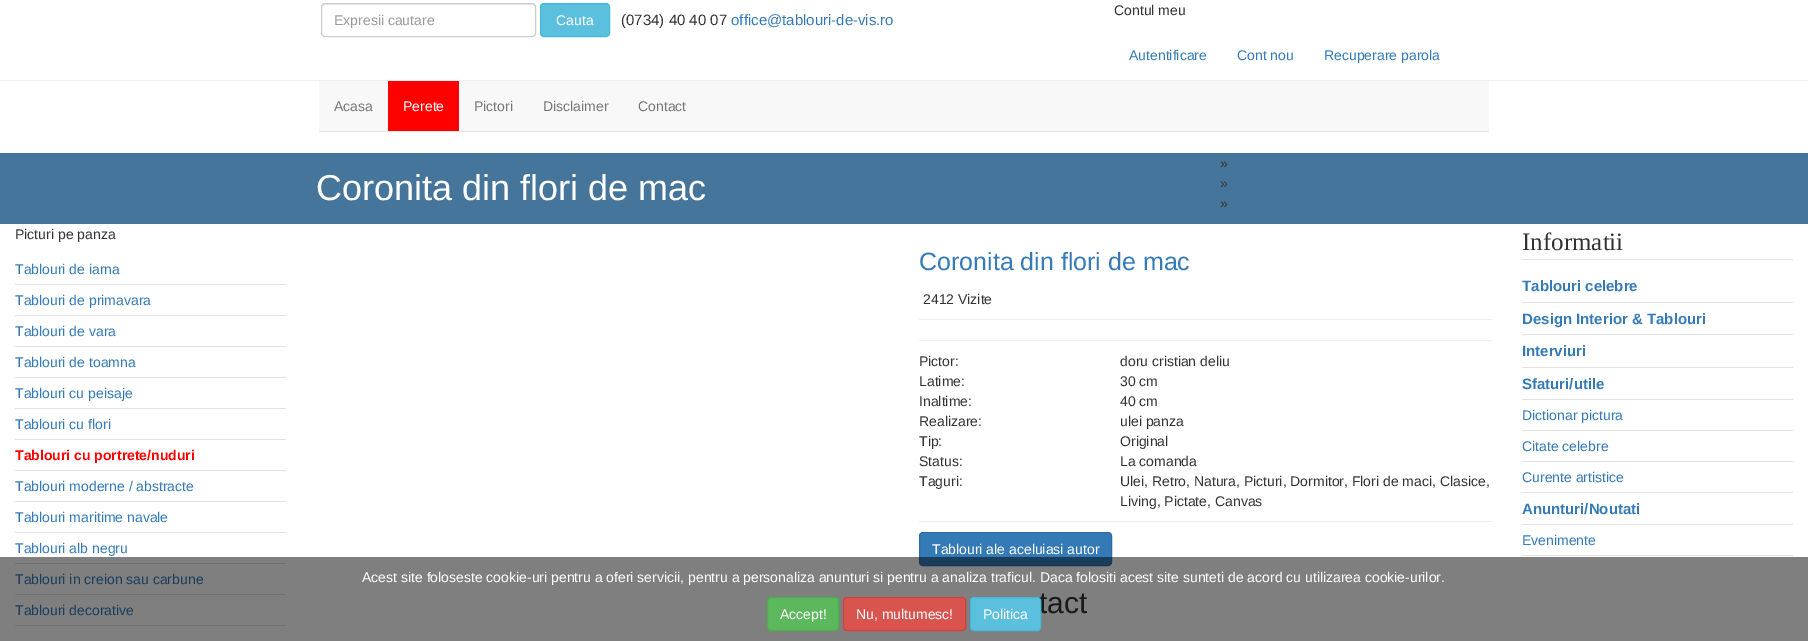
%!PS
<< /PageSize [1808 641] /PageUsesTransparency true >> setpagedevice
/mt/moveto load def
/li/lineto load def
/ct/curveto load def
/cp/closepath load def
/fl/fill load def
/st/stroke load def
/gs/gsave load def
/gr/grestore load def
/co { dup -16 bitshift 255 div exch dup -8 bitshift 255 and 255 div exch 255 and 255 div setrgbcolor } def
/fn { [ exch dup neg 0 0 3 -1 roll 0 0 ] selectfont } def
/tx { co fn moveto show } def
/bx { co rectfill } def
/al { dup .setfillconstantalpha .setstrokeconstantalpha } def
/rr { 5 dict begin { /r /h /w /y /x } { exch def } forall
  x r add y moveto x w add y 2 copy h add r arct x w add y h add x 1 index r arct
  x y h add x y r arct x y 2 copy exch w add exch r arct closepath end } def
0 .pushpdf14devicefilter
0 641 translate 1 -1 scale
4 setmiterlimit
0 0 1808 641 16#FFFFFF bx
0 80 1808 1 16#EFEFEF bx
16#ECECEC co
325 5 mt 532 5 li 534 5 535 6 535 8 ct 535 7 li 535 5 534 4 532 4 ct 325 4 li 323 4 322 5 322 7 ct 322 8 li 322 6 323 5 325 5 ct cp fl
16#CCCCCC co
321.5 3.5 214 33 3.5 rr st
16#5BC0DE co
540.5 3.5 69 33 3.5 rr gs fl gr
16#46B8DA co
st
319 81 1170 50 16#F8F8F8 bx
319 131 1170 1 16#E7E7E7 bx
388 81 71 50 16#FF0000 bx
0 153 1808 71 16#46759B bx
15 284 271 1 16#E2E2E2 bx
15 315 271 1 16#E2E2E2 bx
15 346 271 1 16#E2E2E2 bx
15 377 271 1 16#E2E2E2 bx
15 408 271 1 16#E2E2E2 bx
15 439 271 1 16#E2E2E2 bx
15 470 271 1 16#E2E2E2 bx
15 501 271 1 16#E2E2E2 bx
15 532 271 1 16#E2E2E2 bx
15 563 271 1 16#E2E2E2 bx
15 594 271 1 16#E2E2E2 bx
15 625 271 1 16#E2E2E2 bx
919 319 573 1 16#EEEEEE bx
919 340 573 1 16#EEEEEE bx
919 521 573 1 16#EEEEEE bx
16#337AB7 co
919.5 532.5 192 33 3.5 rr gs fl gr
16#2E6DA4 co
st
1522 259 271 1 16#E2E2E2 bx
1522 302 271 1 16#E2E2E2 bx
1522 334 271 1 16#E2E2E2 bx
1522 367 271 1 16#E2E2E2 bx
1522 399 271 1 16#E2E2E2 bx
1522 430 271 1 16#E2E2E2 bx
1522 461 271 1 16#E2E2E2 bx
1522 492 271 1 16#E2E2E2 bx
1522 524 271 1 16#E2E2E2 bx
1522 555 271 1 16#E2E2E2 bx
(Expresii cautare) 334 25 /LiberationSans-Regular 14 16#999999 tx
(Cauta) 556 25 /LiberationSans-Regular 14 16#FFFFFF tx
(\(0734\) 40 40 07) 621 25 /LiberationSans-Regular 15 16#333333 tx
(office@tablouri-de-vis.ro) 731 25 /LiberationSans-Regular 15 16#337AB7 tx
(Contul meu) 1114 15 /LiberationSans-Regular 14 16#333333 tx
(Autentificare) 1129 60 /LiberationSans-Regular 14 16#337AB7 tx
(Cont nou) 1237 60 /LiberationSans-Regular 14 16#337AB7 tx
(Recuperare parola) 1324 60 /LiberationSans-Regular 14 16#337AB7 tx
(Acasa) 334 111 /LiberationSans-Regular 14 16#777777 tx
(Perete) 403 111 /LiberationSans-Regular 14 16#FFFFFF tx
(Pictori) 474 111 /LiberationSans-Regular 14 16#777777 tx
(Disclaimer) 543 111 /LiberationSans-Regular 14 16#777777 tx
(Contact) 638 111 /LiberationSans-Regular 14 16#777777 tx
(Coronita din flori de mac) 316 200 /LiberationSans-Regular 36 16#FFFFFF tx
(») 1220 168 /LiberationSans-Regular 14 16#333333 tx
(») 1220 188 /LiberationSans-Regular 14 16#333333 tx
(») 1220 208 /LiberationSans-Regular 14 16#333333 tx
(Picturi pe panza) 15 239 /LiberationSans-Regular 14 16#333333 tx
(Tablouri de iarna) 15 274 /LiberationSans-Regular 14 16#337AB7 tx
(Tablouri de primavara) 15 305 /LiberationSans-Regular 14 16#337AB7 tx
(Tablouri de vara) 15 336 /LiberationSans-Regular 14 16#337AB7 tx
(Tablouri de toamna) 15 367 /LiberationSans-Regular 14 16#337AB7 tx
(Tablouri cu peisaje) 15 398 /LiberationSans-Regular 14 16#337AB7 tx
(Tablouri cu flori) 15 429 /LiberationSans-Regular 14 16#337AB7 tx
(Tablouri cu portrete/nuduri) 15 460 /LiberationSans-Bold 14 16#FF0000 tx
(Tablouri moderne / abstracte) 15 491 /LiberationSans-Regular 14 16#337AB7 tx
(Tablouri maritime navale) 15 522 /LiberationSans-Regular 14 16#337AB7 tx
(Tablouri alb negru) 15 553 /LiberationSans-Regular 14 16#337AB7 tx
(Tablouri in creion sau carbune) 15 584 /LiberationSans-Regular 14 16#337AB7 tx
(Tablouri decorative) 15 615 /LiberationSans-Regular 14 16#337AB7 tx
(Coronita din flori de mac) 919 270 /LiberationSans-Regular 25 16#337AB7 tx
(2412 Vizite) 923 304 /LiberationSans-Regular 14 16#333333 tx
(Pictor:) 919 366 /LiberationSans-Regular 14 16#333333 tx
(doru cristian deliu) 1120 366 /LiberationSans-Regular 14 16#333333 tx
(Latime:) 919 386 /LiberationSans-Regular 14 16#333333 tx
(30 cm) 1120 386 /LiberationSans-Regular 14 16#333333 tx
(Inaltime:) 919 406 /LiberationSans-Regular 14 16#333333 tx
(40 cm) 1120 406 /LiberationSans-Regular 14 16#333333 tx
(Realizare:) 919 426 /LiberationSans-Regular 14 16#333333 tx
(ulei panza) 1120 426 /LiberationSans-Regular 14 16#333333 tx
(Tip:) 919 446 /LiberationSans-Regular 14 16#333333 tx
(Original) 1120 446 /LiberationSans-Regular 14 16#333333 tx
(Status:) 919 466 /LiberationSans-Regular 14 16#333333 tx
(La comanda) 1120 466 /LiberationSans-Regular 14 16#333333 tx
(Taguri:) 919 486 /LiberationSans-Regular 14 16#333333 tx
(Ulei, Retro, Natura, Picturi, Dormitor, Flori de maci, Clasice,) 1120 486 /LiberationSans-Regular 14 16#333333 tx
(Living, Pictate, Canvas) 1120 506 /LiberationSans-Regular 14 16#333333 tx
(Tablouri ale aceluiasi autor) 932 554 /LiberationSans-Regular 14 16#FFFFFF tx
(tact) 1039 613 /LiberationSans-Regular 30 16#333333 tx
(Informatii) 1522 250 /LiberationSerif-Regular 25 16#333333 tx
(Tablouri celebre) 1522 291 /LiberationSans-Bold 15 16#337AB7 tx
(Design Interior & Tablouri) 1522 324 /LiberationSans-Bold 15 16#337AB7 tx
(Interviuri) 1522 356 /LiberationSans-Bold 15 16#337AB7 tx
(Sfaturi/utile) 1522 389 /LiberationSans-Bold 15 16#337AB7 tx
(Dictionar pictura) 1522 420 /LiberationSans-Regular 14 16#337AB7 tx
(Citate celebre) 1522 451 /LiberationSans-Regular 14 16#337AB7 tx
(Curente artistice) 1522 482 /LiberationSans-Regular 14 16#337AB7 tx
(Anunturi/Noutati) 1522 514 /LiberationSans-Bold 15 16#337AB7 tx
(Evenimente) 1522 545 /LiberationSans-Regular 14 16#337AB7 tx
0.5 al
0 557 1808 84 16#000000 bx
1 al
(Acest site foloseste cookie-uri pentru a oferi servicii, pentru a personaliza anunturi si pentru a analiza traficul. Daca folositi acest site sunteti de acord cu utilizarea cookie-urilor.) 362 582 /LiberationSans-Regular 14 16#FFFFFF tx
16#5CB85C co
767.5 597.5 71 33 3.5 rr gs fl gr
16#4CAE4C co
st
(Accept!) 780 619 /LiberationSans-Regular 14 16#FFFFFF tx
16#D9534F co
843.5 597.5 122 33 3.5 rr gs fl gr
16#D43F3A co
st
(Nu, multumesc!) 856 619 /LiberationSans-Regular 14 16#FFFFFF tx
16#5BC0DE co
970.5 597.5 70 33 3.5 rr gs fl gr
16#46B8DA co
st
(Politica) 983 619 /LiberationSans-Regular 14 16#FFFFFF tx
.poppdf14devicefilter showpage
